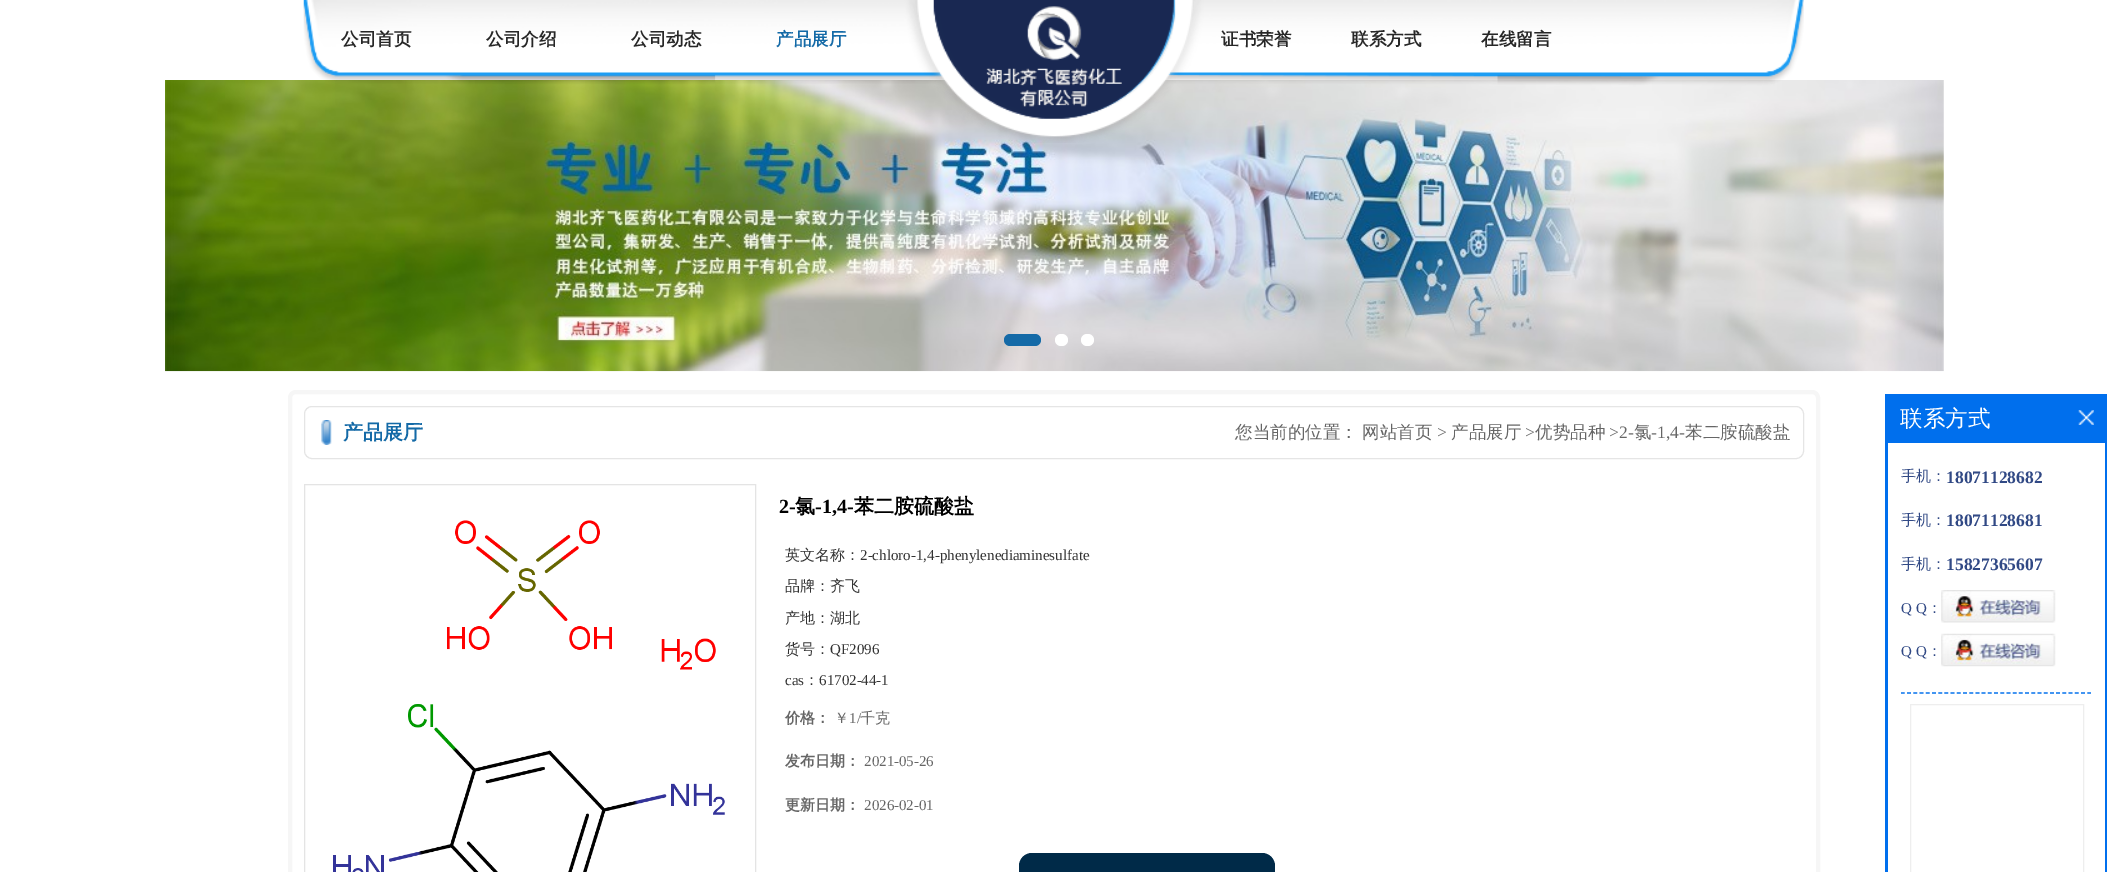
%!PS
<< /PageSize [2107 872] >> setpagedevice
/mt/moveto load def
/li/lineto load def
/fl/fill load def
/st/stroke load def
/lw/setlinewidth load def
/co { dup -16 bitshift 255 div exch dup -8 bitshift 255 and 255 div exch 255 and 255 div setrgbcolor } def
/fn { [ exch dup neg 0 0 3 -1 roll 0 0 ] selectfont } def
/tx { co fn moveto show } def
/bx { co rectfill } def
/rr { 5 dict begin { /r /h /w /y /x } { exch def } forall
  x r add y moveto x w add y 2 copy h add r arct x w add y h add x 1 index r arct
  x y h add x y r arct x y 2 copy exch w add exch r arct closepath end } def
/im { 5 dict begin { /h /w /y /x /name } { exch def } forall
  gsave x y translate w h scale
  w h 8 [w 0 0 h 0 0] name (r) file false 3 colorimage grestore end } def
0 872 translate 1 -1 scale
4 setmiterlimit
0 0 2107 872 16#FFFFFF bx
(media/3.raw) 165 80 1779 292 im
(media/1.raw) 303 0 1501 143 im
(media/2.raw) 933 0 241 119 im
16#146AA7 co
1004 334 37 12 6 rr fl
16#FFFFFF co
1055 334 13 12 6 rr fl
1081 334 13 12 6 rr fl
16#F6F6F6 co
4 lw
290 392 1528 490 6 rr st
(media/4.raw) 321 420 11 25 im
16#E5E5E5 co
1 lw
304.5 406.5 1499 52 7.5 rr st
16#E4E4E4 co
304.5 484.5 451 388 rectstroke
(media/5.raw) 333 520 392 352 im
16#002A48 co
1019 853 256 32 13 rr fl
1885 394 222 478 16#006FED bx
(media/6.raw) 2078 410 16 15 im
1888 443 217 429 16#FFFFFF bx
16#006FED co
1.2 lw
[3.75 2.46] 0 setdash
1901 693 mt 2091 693 li st
(media/7.raw) 1941 590 115 33 im
(media/8.raw) 1941 633 115 34 im
16#EEEEEE co
1 lw
[] 0 setdash
1910.5 704.5 173 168 rectstroke
(公司首页) 341 45 /WenQuanYiZenHei-Bold 17.5 16#272727 tx
(公司介绍) 486 45 /WenQuanYiZenHei-Bold 17.5 16#272727 tx
(公司动态) 631 45 /WenQuanYiZenHei-Bold 17.5 16#272727 tx
(产品展厅) 776 45 /WenQuanYiZenHei-Bold 17.5 16#146AA7 tx
(证书荣誉) 1221 45 /WenQuanYiZenHei-Bold 17.5 16#272727 tx
(联系方式) 1351 45 /WenQuanYiZenHei-Bold 17.5 16#272727 tx
(在线留言) 1481 45 /WenQuanYiZenHei-Bold 17.5 16#272727 tx
(产品展厅) 343 439 /WenQuanYiZenHei-Bold 20 16#146AA7 tx
(您当前的位置：) 1235 438 /WenQuanYiZenHei-Medium 17.5 16#666666 tx
(网站首页) 1362 438 /WenQuanYiZenHei-Medium 17.5 16#666666 tx
(>) 1437 438 /LiberationSerif-Regular 17.5 16#666666 tx
(产品展厅) 1451 438 /WenQuanYiZenHei-Medium 17.5 16#666666 tx
(>) 1525 438 /LiberationSerif-Regular 17.5 16#666666 tx
(优势品种) 1535 438 /WenQuanYiZenHei-Medium 17.5 16#666666 tx
(>2-) 1609 438 /LiberationSerif-Regular 17.5 16#666666 tx
(氯) 1634 438 /WenQuanYiZenHei-Medium 17.5 16#666666 tx
(-1,4-) 1651 438 /LiberationSerif-Regular 17.5 16#666666 tx
(苯二胺硫酸盐) 1685 438 /WenQuanYiZenHei-Medium 17.5 16#666666 tx
(2-) 779 513 /LiberationSerif-Bold 20 16#000000 tx
(氯) 795 513 /WenQuanYiZenHei-Bold 20 16#000000 tx
(-1,4-) 815 513 /LiberationSerif-Bold 20 16#000000 tx
(苯二胺硫酸盐) 854 513 /WenQuanYiZenHei-Bold 20 16#000000 tx
(英文名称：) 785 560 /WenQuanYiZenHei-Medium 15 16#333333 tx
(2-chloro-1,4-phenylenediaminesulfate) 860 560 /LiberationSerif-Regular 15 16#333333 tx
(品牌：齐飞) 785 591 /WenQuanYiZenHei-Medium 15 16#333333 tx
(产地：湖北) 785 623 /WenQuanYiZenHei-Medium 15 16#333333 tx
(货号：) 785 654 /WenQuanYiZenHei-Medium 15 16#333333 tx
(QF2096) 830 654 /LiberationSerif-Regular 15 16#333333 tx
(cas) 785 685 /LiberationSerif-Regular 15 16#333333 tx
(：) 804 685 /WenQuanYiZenHei-Medium 15 16#333333 tx
(61702-44-1) 819 685 /LiberationSerif-Regular 15 16#333333 tx
(价格：) 785 723 /WenQuanYiZenHei-Bold 15 16#666666 tx
(￥) 834 723 /WenQuanYiZenHei-Medium 15 16#666666 tx
(1/) 849 723 /LiberationSerif-Regular 15 16#666666 tx
(千克) 860 723 /WenQuanYiZenHei-Medium 15 16#666666 tx
(发布日期：) 785 766 /WenQuanYiZenHei-Bold 15 16#666666 tx
(2021-05-26) 864 766 /LiberationSerif-Regular 15 16#666666 tx
(更新日期：) 785 810 /WenQuanYiZenHei-Bold 15 16#666666 tx
(2026-02-01) 864 810 /LiberationSerif-Regular 15 16#666666 tx
(联系方式) 1900 426 /WenQuanYiZenHei-Medium 22.5 16#FFFFFF tx
(手机：) 1901 481 /WenQuanYiZenHei-Medium 15 16#314985 tx
(18071128682) 1946 483 /LiberationSerif-Bold 17.5 16#314985 tx
(手机：) 1901 525 /WenQuanYiZenHei-Medium 15 16#314985 tx
(18071128681) 1946 526 /LiberationSerif-Bold 17.5 16#314985 tx
(手机：) 1901 569 /WenQuanYiZenHei-Medium 15 16#314985 tx
(15827365607) 1946 570 /LiberationSerif-Bold 17.5 16#314985 tx
(Q Q) 1901 613 /LiberationSerif-Regular 15 16#314985 tx
(：) 1927 613 /WenQuanYiZenHei-Medium 15 16#314985 tx
(Q Q) 1901 656 /LiberationSerif-Regular 15 16#314985 tx
(：) 1927 656 /WenQuanYiZenHei-Medium 15 16#314985 tx
showpage
